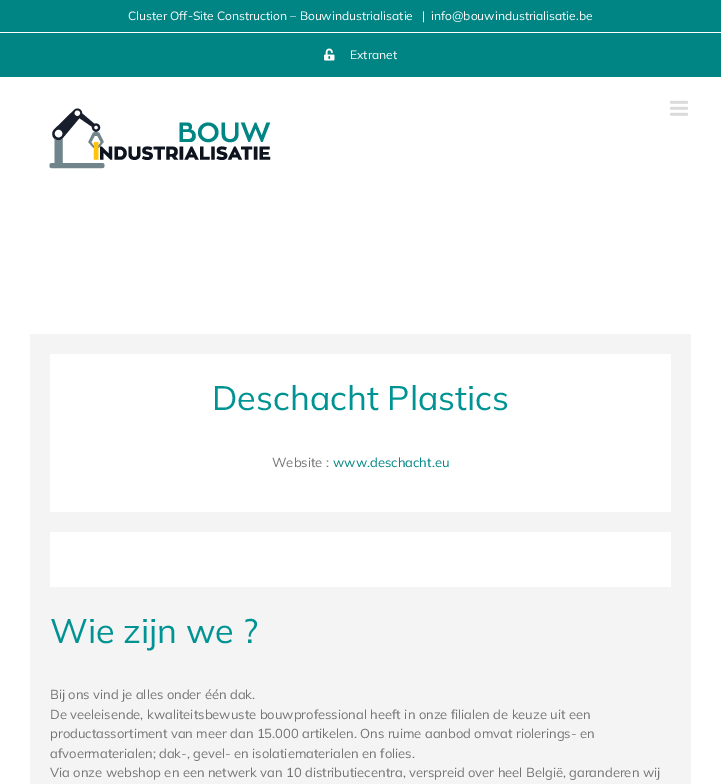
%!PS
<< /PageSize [721 784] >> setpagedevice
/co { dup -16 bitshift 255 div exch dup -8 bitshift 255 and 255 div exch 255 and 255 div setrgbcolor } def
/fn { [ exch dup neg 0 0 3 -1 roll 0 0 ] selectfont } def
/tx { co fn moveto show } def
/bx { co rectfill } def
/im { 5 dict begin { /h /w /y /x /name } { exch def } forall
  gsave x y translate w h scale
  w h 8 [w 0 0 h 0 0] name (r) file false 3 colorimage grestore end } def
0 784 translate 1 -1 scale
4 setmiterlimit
0 0 721 784 16#FFFFFF bx
0 0 721 77 16#008484 bx
0 32 721 1 16#FFFFFF bx
(media/1.raw) 324 48 11 13 im
(media/2.raw) 49 108 222 61 im
(media/3.raw) 670 100 18 16 im
30 334 661 450 16#F4F4F4 bx
50 354 621 158 16#FFFFFF bx
50 532 621 55 16#FFFFFF bx
(Cluster Off-Site Construction – Bouwindustrialisatie) 128 20 /Mulish-Regular 12 16#FFFFFF tx
(|) 422 20 /Mulish-Regular 12 16#FFFFFF tx
(info@bouwindustrialisatie.be) 431 20 /Mulish-Regular 12 16#FFFFFF tx
(Extranet) 350 59 /Mulish-Regular 12 16#FFFFFF tx
(Deschacht Plastics) 212 410 /Mulish-Regular 34 16#009393 tx
(Website :) 272 467 /Mulish-Regular 13 16#747474 tx
(www.deschacht.eu) 333 467 /Mulish-Regular 13 16#008484 tx
(Wie zijn we ?) 50 643 /Mulish-Regular 34 16#009393 tx
(Bij ons vind je alles onder één dak.) 50 699 /Mulish-Regular 13 16#747474 tx
(De veeleisende, kwaliteitsbewuste bouwprofessional heeft in onze filialen de keuze uit een) 50 719 /Mulish-Regular 13 16#747474 tx
(productassortiment van meer dan 15.000 artikelen. Ons ruime aanbod omvat riolerings- en) 50 738 /Mulish-Regular 13 16#747474 tx
(afvoermaterialen; dak-, gevel- en isolatiematerialen en folies.) 50 758 /Mulish-Regular 13 16#747474 tx
(Via onze webshop en een netwerk van 10 distributiecentra, verspreid over heel België, garanderen wij) 50 777 /Mulish-Regular 13 16#747474 tx
showpage
